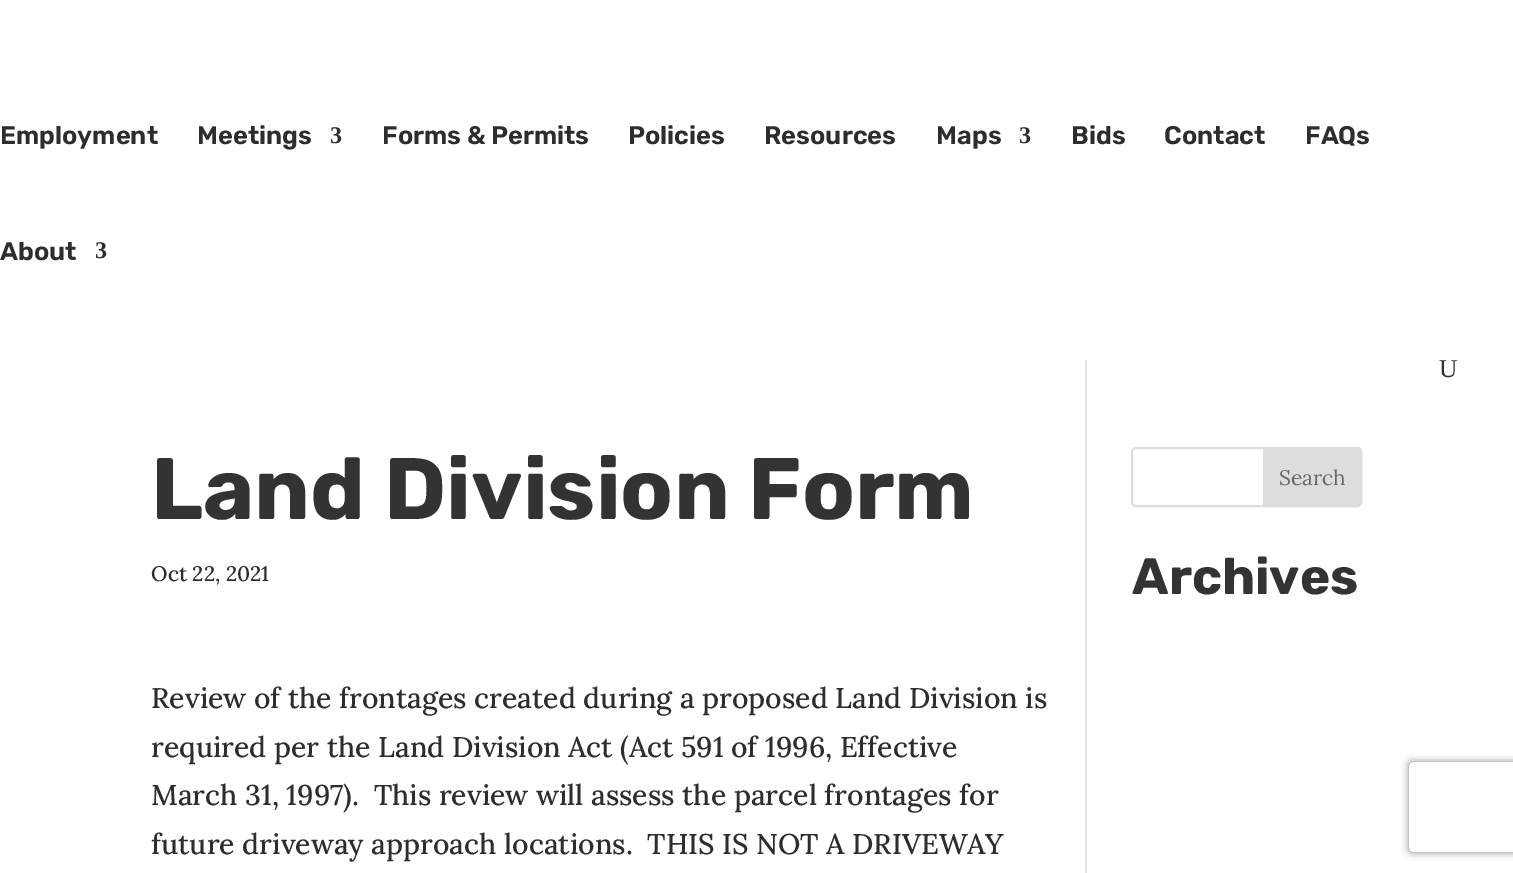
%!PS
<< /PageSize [1513 873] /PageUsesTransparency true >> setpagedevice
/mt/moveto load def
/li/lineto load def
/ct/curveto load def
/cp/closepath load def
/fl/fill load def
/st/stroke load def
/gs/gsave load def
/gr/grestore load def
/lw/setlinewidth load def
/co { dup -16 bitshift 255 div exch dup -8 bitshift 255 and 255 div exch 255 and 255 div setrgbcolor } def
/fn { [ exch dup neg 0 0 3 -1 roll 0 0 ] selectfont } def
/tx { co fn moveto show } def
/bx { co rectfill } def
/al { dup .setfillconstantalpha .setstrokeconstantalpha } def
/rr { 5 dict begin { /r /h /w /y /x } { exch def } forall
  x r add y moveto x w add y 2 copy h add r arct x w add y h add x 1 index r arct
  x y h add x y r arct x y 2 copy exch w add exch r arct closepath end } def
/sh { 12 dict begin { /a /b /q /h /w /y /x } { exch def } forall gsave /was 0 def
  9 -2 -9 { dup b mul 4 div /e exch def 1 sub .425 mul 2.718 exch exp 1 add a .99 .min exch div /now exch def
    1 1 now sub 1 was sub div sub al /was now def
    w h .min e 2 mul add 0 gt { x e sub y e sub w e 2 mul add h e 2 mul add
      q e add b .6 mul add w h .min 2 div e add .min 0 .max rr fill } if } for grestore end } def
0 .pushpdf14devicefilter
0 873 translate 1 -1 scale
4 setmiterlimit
0 0 1513 873 16#FFFFFF bx
1085 360 2 513 16#E2E2E2 bx
16#DDDDDD co
2 lw
1132 448 229 58 4 rr st
1264 448 mt 1357 448 li 1359 448 1361 450 1361 452 ct 1361 502 li 1361 504 1359 506 1357 506 ct 1264 506 li cp gs fl gr
st
gs
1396 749 mt 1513 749 li 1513 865 li 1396 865 li cp 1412 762 mt 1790 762 li 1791.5 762 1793 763.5 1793 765 ct 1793 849 li 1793 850.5 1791.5 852 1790 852 ct 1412 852 li 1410.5 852 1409 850.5 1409 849 ct 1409 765 li 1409 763.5 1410.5 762 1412 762 ct cp eoclip newpath
16#808080 co
1409 762 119 90 3 4 1 sh
gr
(Employment) 0 144 /Rubik-SemiBold 25.5 16#2D2D2D tx
(Meetings) 197 144 /Rubik-SemiBold 25.5 16#2D2D2D tx
(3) 330 143 /LiberationSerif-Bold 24 16#2D2D2D tx
(Forms & Permits) 382 144 /Rubik-SemiBold 25.5 16#2D2D2D tx
(Policies) 628 144 /Rubik-SemiBold 25.5 16#2D2D2D tx
(Resources) 764 144 /Rubik-SemiBold 25.5 16#2D2D2D tx
(Maps) 936 144 /Rubik-SemiBold 25.5 16#2D2D2D tx
(3) 1019 143 /LiberationSerif-Bold 24 16#2D2D2D tx
(Bids) 1071 144 /Rubik-SemiBold 25.5 16#2D2D2D tx
(Contact) 1164 144 /Rubik-SemiBold 25.5 16#2D2D2D tx
(FAQs) 1305 144 /Rubik-SemiBold 25.5 16#2D2D2D tx
(About) 0 260 /Rubik-SemiBold 25.5 16#2D2D2D tx
(3) 95 258 /LiberationSerif-Bold 24 16#2D2D2D tx
(U) 1439 377 /LiberationSerif-Regular 25.5 16#2D2D2D tx
(Land Division Form) 151 519 /Rubik-Light 87 16#333333 tx
(Oct 22, 2021) 151 581 /Lora-Medium 21 16#2D2D2D tx
(Review of the frontages created during a proposed Land Division is) 151 708 /Lora-Medium 28.5 16#2D2D2D tx
(required per the Land Division Act \(Act 591 of 1996, Effective) 151 757 /Lora-Medium 28.5 16#2D2D2D tx
(March 31, 1997\).  This review will assess the parcel frontages for) 151 805 /Lora-Medium 28.5 16#2D2D2D tx
(future driveway approach locations.  THIS IS NOT A DRIVEWAY) 151 854 /Lora-Medium 28.5 16#2D2D2D tx
(Search) 1279 485 /Lora-Regular 21 16#666666 tx
(Archives) 1132 594 /Rubik-Light 51 16#333333 tx
.poppdf14devicefilter showpage
